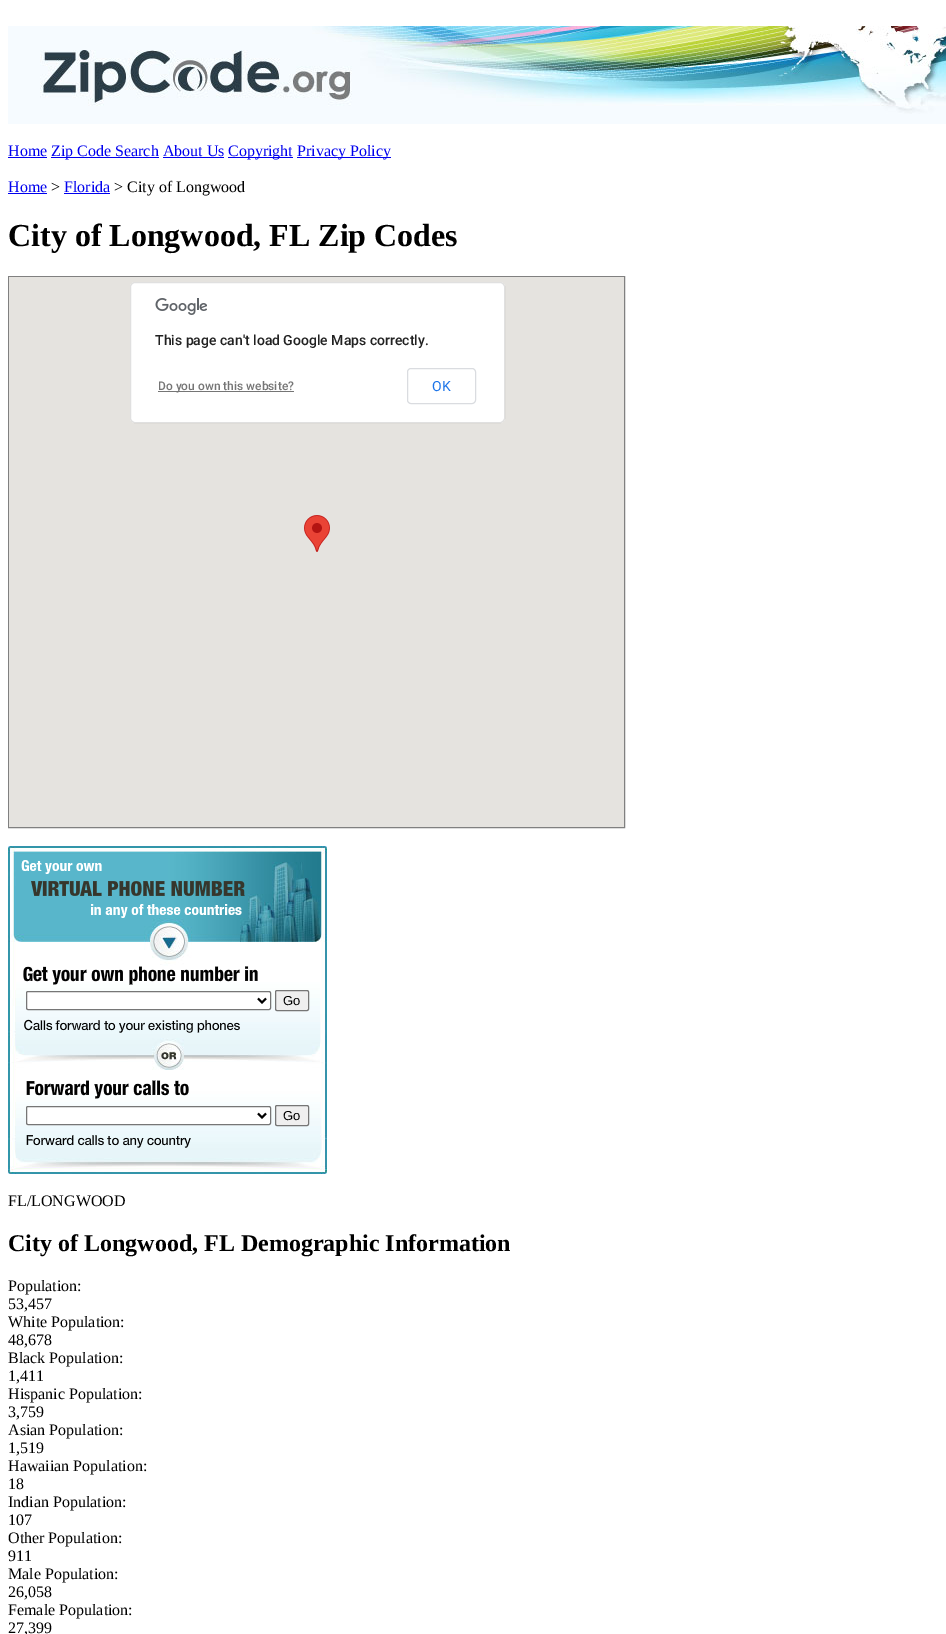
%!PS
<< /PageSize [946 1634] /PageUsesTransparency true >> setpagedevice
/mt/moveto load def
/li/lineto load def
/fl/fill load def
/st/stroke load def
/gs/gsave load def
/gr/grestore load def
/lw/setlinewidth load def
/co { dup -16 bitshift 255 div exch dup -8 bitshift 255 and 255 div exch 255 and 255 div setrgbcolor } def
/fn { [ exch dup neg 0 0 3 -1 roll 0 0 ] selectfont } def
/tx { co fn moveto show } def
/bx { co rectfill } def
/al { dup .setfillconstantalpha .setstrokeconstantalpha } def
/rr { 5 dict begin { /r /h /w /y /x } { exch def } forall
  x r add y moveto x w add y 2 copy h add r arct x w add y h add x 1 index r arct
  x y h add x y r arct x y 2 copy exch w add exch r arct closepath end } def
/im { 5 dict begin { /h /w /y /x /name } { exch def } forall
  gsave x y translate w h scale
  w h 8 [w 0 0 h 0 0] name (r) file false 3 colorimage grestore end } def
0 .pushpdf14devicefilter
0 1634 translate 1 -1 scale
4 setmiterlimit
0 0 946 1634 16#FFFFFF bx
(media/1.raw) 8 26 938 98 im
8 157 39 1 16#0000EE bx
51 157 108 1 16#0000EE bx
228 157 65 1 16#0000EE bx
297 157 94 1 16#0000EE bx
163 157 61 1 16#0000EE bx
8 193 39 1 16#0000EE bx
64 193 46 1 16#0000EE bx
16#808080 co
8.5 276.5 616 551 rectstroke
9 277 615 550 16#E5E3DF bx
(media/2.raw) 304 515 26 37 im
16#FFFFFF co
130 282 375 141 5 rr fl
0.12 al
16#000000 co
130.5 282.5 374 140 4.5 rr st
1 al
(media/3.raw) 155 298 52 17 im
158 391 136 1 16#757575 bx
16#DADCE0 co
407.5 368.5 68 35 3.5 rr st
(media/4.raw) 8 846 319 328 im
16#FFFFFF co
26.5 991.5 244 18 1.5 rr gs fl gr
16#767676 co
st
16#000000 co
2 lw
258 998.5 mt 262 1002.5 li 266 998.5 li st
16#EFEFEF co
275.5 990.5 33 20 1.5 rr gs fl gr
16#767676 co
1 lw
st
16#FFFFFF co
26.5 1106.5 244 18 1.5 rr gs fl gr
16#767676 co
st
16#000000 co
2 lw
258 1113.5 mt 262 1117.5 li 266 1113.5 li st
16#EFEFEF co
275.5 1105.5 33 20 1.5 rr gs fl gr
16#767676 co
1 lw
st
(Home) 8 156 /LiberationSerif-Regular 16 16#0000EE tx
(Zip Code Search About Us) 51 156 /LiberationSerif-Regular 16 16#0000EE tx
(Copyright) 228 156 /LiberationSerif-Regular 16 16#0000EE tx
(Privacy Policy) 297 156 /LiberationSerif-Regular 16 16#0000EE tx
(Home) 8 192 /LiberationSerif-Regular 16 16#0000EE tx
(>) 51 192 /LiberationSerif-Regular 16 16#000000 tx
(Florida) 64 192 /LiberationSerif-Regular 16 16#0000EE tx
(> City of Longwood) 114 192 /LiberationSerif-Regular 16 16#000000 tx
(City of Longwood, FL Zip Codes) 8 246 /LiberationSerif-Bold 32 16#000000 tx
(This page can't load Google Maps correctly.) 155 345 /Roboto-Medium 14 16#212121 tx
(Do you own this website?) 158 390 /Roboto-Medium 12 16#757575 tx
(OK) 432 391 /Roboto-Regular 14 16#1A73E8 tx
(Go) 283 1005 /LiberationSans-Regular 13 16#000000 tx
(Go) 283 1120 /LiberationSans-Regular 13 16#000000 tx
(FL/LONGWOOD) 8 1206 /LiberationSerif-Regular 16 16#000000 tx
(City of Longwood, FL Demographic Information) 8 1251 /LiberationSerif-Bold 24 16#000000 tx
(Population:) 8 1291 /LiberationSerif-Regular 16 16#000000 tx
(53,457) 8 1309 /LiberationSerif-Regular 16 16#000000 tx
(White Population:) 8 1327 /LiberationSerif-Regular 16 16#000000 tx
(48,678) 8 1345 /LiberationSerif-Regular 16 16#000000 tx
(Black Population:) 8 1363 /LiberationSerif-Regular 16 16#000000 tx
(1,411) 8 1381 /LiberationSerif-Regular 16 16#000000 tx
(Hispanic Population:) 8 1399 /LiberationSerif-Regular 16 16#000000 tx
(3,759) 8 1417 /LiberationSerif-Regular 16 16#000000 tx
(Asian Population:) 8 1435 /LiberationSerif-Regular 16 16#000000 tx
(1,519) 8 1453 /LiberationSerif-Regular 16 16#000000 tx
(Hawaiian Population:) 8 1471 /LiberationSerif-Regular 16 16#000000 tx
(18) 8 1489 /LiberationSerif-Regular 16 16#000000 tx
(Indian Population:) 8 1507 /LiberationSerif-Regular 16 16#000000 tx
(107) 8 1525 /LiberationSerif-Regular 16 16#000000 tx
(Other Population:) 8 1543 /LiberationSerif-Regular 16 16#000000 tx
(911) 8 1561 /LiberationSerif-Regular 16 16#000000 tx
(Male Population:) 8 1579 /LiberationSerif-Regular 16 16#000000 tx
(26,058) 8 1597 /LiberationSerif-Regular 16 16#000000 tx
(Female Population:) 8 1615 /LiberationSerif-Regular 16 16#000000 tx
(27,399) 8 1633 /LiberationSerif-Regular 16 16#000000 tx
.poppdf14devicefilter showpage
